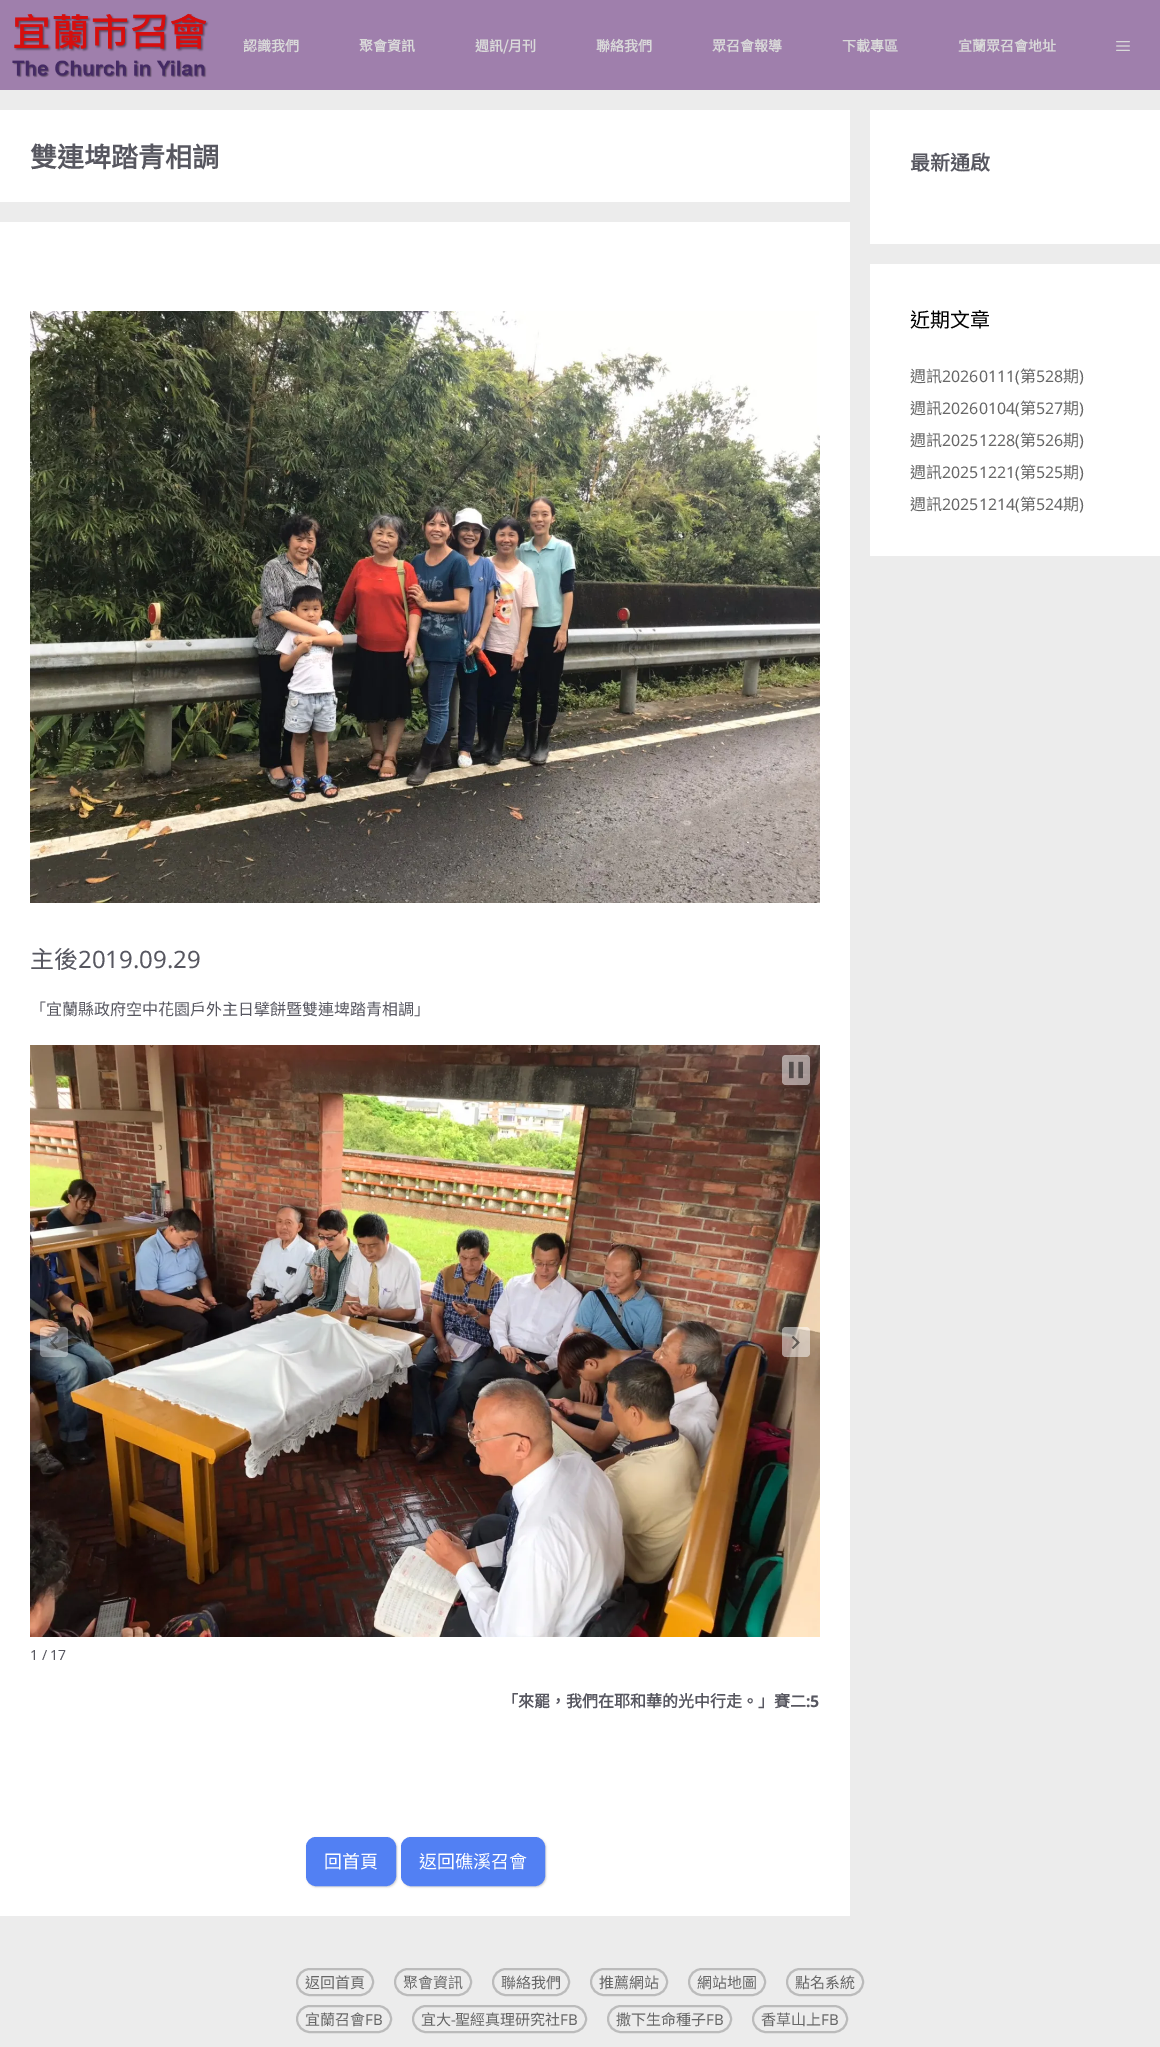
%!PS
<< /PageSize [1160 2047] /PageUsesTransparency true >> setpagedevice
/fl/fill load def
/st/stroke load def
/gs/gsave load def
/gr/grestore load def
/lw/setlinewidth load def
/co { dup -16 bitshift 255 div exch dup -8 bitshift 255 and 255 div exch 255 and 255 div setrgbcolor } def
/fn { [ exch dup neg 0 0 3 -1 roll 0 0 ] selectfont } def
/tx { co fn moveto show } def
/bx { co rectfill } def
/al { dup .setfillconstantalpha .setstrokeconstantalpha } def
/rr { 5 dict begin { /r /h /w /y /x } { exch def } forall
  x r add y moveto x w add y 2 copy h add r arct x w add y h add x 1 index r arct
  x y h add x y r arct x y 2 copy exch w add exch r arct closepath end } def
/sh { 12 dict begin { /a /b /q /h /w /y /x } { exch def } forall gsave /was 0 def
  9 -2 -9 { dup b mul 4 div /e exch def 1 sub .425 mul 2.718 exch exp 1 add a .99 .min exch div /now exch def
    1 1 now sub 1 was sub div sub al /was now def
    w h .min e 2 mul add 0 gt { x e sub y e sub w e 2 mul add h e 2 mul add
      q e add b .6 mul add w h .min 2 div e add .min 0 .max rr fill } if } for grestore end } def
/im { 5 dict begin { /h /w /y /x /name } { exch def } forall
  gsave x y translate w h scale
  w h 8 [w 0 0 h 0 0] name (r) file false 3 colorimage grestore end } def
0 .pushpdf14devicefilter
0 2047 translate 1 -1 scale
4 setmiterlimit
0 0 1160 2047 16#ECECEC bx
0 0 1160 90 16#9F7FAC bx
(media/1.raw) 12 13 197 65 im
(media/2.raw) 1116 41 14 10 im
0 110 850 92 16#FFFFFF bx
0 222 850 1694 16#FFFFFF bx
(media/3.raw) 30 311 790 592 im
(media/4.raw) 30 1045 790 592 im
0.5 al
782 1055 28 30 4 rr fl
1 al
(media/5.raw) 789 1061 14 18 im
0.35 al
40 1327 28 30 4 rr fl
1 al
(media/6.raw) 50 1336 8 13 im
0.5 al
782 1327 28 30 4 rr fl
1 al
(media/7.raw) 791 1336 9 13 im
16#000000 co
307 1838 90 49 10 1 .2 sh
16#5280F3 co
307 1838 88 47 9 rr gs fl gr
2 lw
st
16#000000 co
402 1838 144 49 10 1 .2 sh
16#5280F3 co
402 1838 142 47 9 rr gs fl gr
st
870 110 290 134 16#FFFFFF bx
870 264 290 292 16#FFFFFF bx
16#BBBBBB co
297 1969 76 26 13 rr st
395 1969 76 26 13 rr st
493 1969 76 26 13 rr st
591 1969 76 26 13 rr st
689 1969 76 26 13 rr st
787 1969 76 26 13 rr st
297 2006 94 26 13 rr st
413 2006 173 26 13 rr st
608 2006 123 26 13 rr st
753 2006 94 26 13 rr st
(認識我們) 243 51 /NotoSansTC-Bold 14 16#D9D9D9 tx
(聚會資訊) 359 51 /NotoSansTC-Bold 14 16#D9D9D9 tx
(週訊/月刊) 475 51 /NotoSansTC-Bold 14 16#D9D9D9 tx
(聯絡我們) 596 51 /NotoSansTC-Bold 14 16#D9D9D9 tx
(眾召會報導) 712 51 /NotoSansTC-Bold 14 16#D9D9D9 tx
(下載專區) 842 51 /NotoSansTC-Bold 14 16#D9D9D9 tx
(宜蘭眾召會地址) 958 51 /NotoSansTC-Bold 14 16#D9D9D9 tx
(雙連埤踏青相調) 30 167 /NotoSansTC-Bold 27 16#575760 tx
(主後) 30 968 /NotoSansCJKTC-Regular 24 16#575760 tx
(2019.09.29) 78 968 /NotoSans-Regular 24 16#575760 tx
(「宜蘭縣政府空中花園戶外主日擘餅暨雙連埤踏青相調」) 30 1015 /NotoSansCJKTC-Regular 16 16#575760 tx
(1 / 17) 30 1660 /NotoSans-Regular 14 16#575760 tx
(「來罷，我們在耶和華的光中行走。」賽二) 502 1707 /NotoSansCJKTC-Bold 16 16#575760 tx
(:5) 806 1707 /NotoSans-Bold 16 16#575760 tx
(回首頁) 324 1868 /NotoSansCJKTC-Regular 18 16#FFFFFF tx
(返回礁溪召會) 419 1868 /NotoSansCJKTC-Regular 18 16#FFFFFF tx
(最新通啟) 910 170 /NotoSansTC-Bold 20 16#575760 tx
(近期文章) 910 327 /NotoSansTC-Thin 20 16#000000 tx
(週訊) 910 382 /NotoSansCJKTC-Regular 16 16#666666 tx
(20260111\() 942 382 /NotoSans-Regular 16 16#666666 tx
(第) 1020 382 /NotoSansCJKTC-Regular 16 16#666666 tx
(528) 1036 382 /NotoSans-Regular 16 16#666666 tx
(期) 1063 382 /NotoSansCJKTC-Regular 16 16#666666 tx
(\)) 1079 382 /NotoSans-Regular 16 16#666666 tx
(週訊) 910 414 /NotoSansCJKTC-Regular 16 16#666666 tx
(20260104\() 942 414 /NotoSans-Regular 16 16#666666 tx
(第) 1020 414 /NotoSansCJKTC-Regular 16 16#666666 tx
(527) 1036 414 /NotoSans-Regular 16 16#666666 tx
(期) 1063 414 /NotoSansCJKTC-Regular 16 16#666666 tx
(\)) 1079 414 /NotoSans-Regular 16 16#666666 tx
(週訊) 910 446 /NotoSansCJKTC-Regular 16 16#666666 tx
(20251228\() 942 446 /NotoSans-Regular 16 16#666666 tx
(第) 1020 446 /NotoSansCJKTC-Regular 16 16#666666 tx
(526) 1036 446 /NotoSans-Regular 16 16#666666 tx
(期) 1063 446 /NotoSansCJKTC-Regular 16 16#666666 tx
(\)) 1079 446 /NotoSans-Regular 16 16#666666 tx
(週訊) 910 478 /NotoSansCJKTC-Regular 16 16#666666 tx
(20251221\() 942 478 /NotoSans-Regular 16 16#666666 tx
(第) 1020 478 /NotoSansCJKTC-Regular 16 16#666666 tx
(525) 1036 478 /NotoSans-Regular 16 16#666666 tx
(期) 1063 478 /NotoSansCJKTC-Regular 16 16#666666 tx
(\)) 1079 478 /NotoSans-Regular 16 16#666666 tx
(週訊) 910 510 /NotoSansCJKTC-Regular 16 16#666666 tx
(20251214\() 942 510 /NotoSans-Regular 16 16#666666 tx
(第) 1020 510 /NotoSansCJKTC-Regular 16 16#666666 tx
(524) 1036 510 /NotoSans-Regular 16 16#666666 tx
(期) 1063 510 /NotoSansCJKTC-Regular 16 16#666666 tx
(\)) 1079 510 /NotoSans-Regular 16 16#666666 tx
(返回首頁) 305 1988 /NotoSansCJKTC-Regular 15 16#666666 tx
(聚會資訊) 403 1988 /NotoSansCJKTC-Regular 15 16#666666 tx
(聯絡我們) 501 1988 /NotoSansCJKTC-Regular 15 16#666666 tx
(推薦網站) 599 1988 /NotoSansCJKTC-Regular 15 16#666666 tx
(網站地圖) 697 1988 /NotoSansCJKTC-Regular 15 16#666666 tx
(點名系統) 795 1988 /NotoSansCJKTC-Regular 15 16#666666 tx
(宜蘭召會) 305 2025 /NotoSansCJKTC-Regular 15 16#666666 tx
(FB) 365 2025 /NotoSans-Regular 15 16#666666 tx
(宜大) 421 2025 /NotoSansCJKTC-Regular 15 16#666666 tx
(-) 451 2025 /NotoSans-Regular 15 16#666666 tx
(聖經真理研究社) 455 2025 /NotoSansCJKTC-Regular 15 16#666666 tx
(FB) 560 2025 /NotoSans-Regular 15 16#666666 tx
(撒下生命種子) 616 2025 /NotoSansCJKTC-Regular 15 16#666666 tx
(FB) 706 2025 /NotoSans-Regular 15 16#666666 tx
(香草山上) 761 2025 /NotoSansCJKTC-Regular 15 16#666666 tx
(FB) 821 2025 /NotoSans-Regular 15 16#666666 tx
.poppdf14devicefilter showpage
